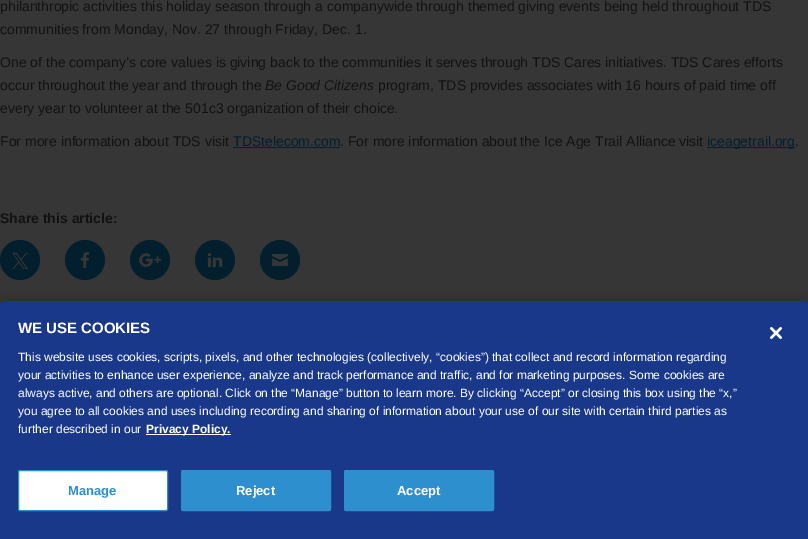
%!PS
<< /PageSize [808 539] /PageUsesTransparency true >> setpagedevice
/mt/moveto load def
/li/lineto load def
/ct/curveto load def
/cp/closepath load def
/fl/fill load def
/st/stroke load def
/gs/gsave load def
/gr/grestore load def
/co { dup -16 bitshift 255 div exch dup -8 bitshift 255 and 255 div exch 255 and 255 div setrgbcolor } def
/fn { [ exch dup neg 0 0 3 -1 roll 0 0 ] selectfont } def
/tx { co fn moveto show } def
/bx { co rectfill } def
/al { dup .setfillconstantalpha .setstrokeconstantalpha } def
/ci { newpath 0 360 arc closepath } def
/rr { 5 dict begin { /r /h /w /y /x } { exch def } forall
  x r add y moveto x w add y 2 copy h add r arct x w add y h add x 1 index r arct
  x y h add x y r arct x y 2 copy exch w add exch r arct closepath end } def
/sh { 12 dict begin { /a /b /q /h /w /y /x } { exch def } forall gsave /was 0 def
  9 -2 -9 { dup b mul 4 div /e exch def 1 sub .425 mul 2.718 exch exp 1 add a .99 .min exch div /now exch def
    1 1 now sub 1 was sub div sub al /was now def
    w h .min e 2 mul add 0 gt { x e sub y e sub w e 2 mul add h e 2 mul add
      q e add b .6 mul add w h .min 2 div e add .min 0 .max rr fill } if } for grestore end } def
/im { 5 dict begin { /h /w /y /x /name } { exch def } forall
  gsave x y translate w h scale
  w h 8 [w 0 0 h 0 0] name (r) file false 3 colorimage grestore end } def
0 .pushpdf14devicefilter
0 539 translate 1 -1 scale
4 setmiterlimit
0 0 808 539 16#363636 bx
233 147 107 1 16#031E2C bx
707 147 88 1 16#031E2C bx
20 260 20 ci fl
(media/1.raw) 12 252 16 17 im
85 260 20 ci fl
(media/2.raw) 80 252 10 16 im
150 260 20 ci fl
(media/3.raw) 139 253 22 14 im
215 260 20 ci fl
(media/4.raw) 207 253 16 15 im
280 260 20 ci fl
(media/5.raw) 272 254 16 12 im
16#000000 co
0 301 808 238 5 9 .2 sh
16#19388A co
5 301 mt 803 301 li 806 301 808 303 808 306 ct 808 539 li 0 539 li 0 306 li 0 303 2 301 5 301 ct cp fl
146 434 85 1 16#FFFFFF bx
18.5 470.5 149 40 1.5 rr gs fl gr
16#2E8FCF co
st
181.5 470.5 149 40 1.5 rr gs fl gr
st
344.5 470.5 149 40 1.5 rr gs fl gr
st
(media/6.raw) 770 327 12 12 im
(philanthropic activities this holiday season through a companywide through themed giving events being held throughout TDS) 0 11 /LiberationSans-Regular 14 16#121212 tx
(communities from Monday, Nov. 27 through Friday, Dec. 1.) 0 34 /LiberationSans-Regular 14 16#121212 tx
(One of the company’s core values is giving back to the communities it serves through TDS Cares initiatives. TDS Cares efforts) 0 67 /LiberationSans-Regular 14 16#121212 tx
(occur throughout the year and through the) 0 90 /LiberationSans-Regular 14 16#121212 tx
(Be Good Citizens) 265 90 /LiberationSans-Italic 14 16#121212 tx
(program, TDS provides associates with 16 hours of paid time off) 378 90 /LiberationSans-Regular 14 16#121212 tx
(every year to volunteer at the 501c3 organization of their choice.) 0 113 /LiberationSans-Regular 14 16#121212 tx
(For more information about TDS visit) 0 146 /LiberationSans-Regular 14 16#121212 tx
(TDStelecom.com) 233 146 /LiberationSans-Regular 14 16#031E2C tx
(. For more information about the Ice Age Trail Alliance visit) 340 146 /LiberationSans-Regular 14 16#121212 tx
(iceagetrail.org) 707 146 /LiberationSans-Regular 14 16#031E2C tx
(.) 795 146 /LiberationSans-Regular 14 16#121212 tx
(Share this article:) 0 223 /LiberationSans-Bold 14 16#121212 tx
(WE USE COOKIES) 18 333 /LiberationSans-Bold 15 16#FFFFFF tx
(This website uses cookies, scripts, pixels, and other technologies \(collectively, “cookies”\) that collect and record information regarding) 18 361 /LiberationSans-Regular 12 16#FFFFFF tx
(your activities to enhance user experience, analyze and track performance and traffic, and for marketing purposes. Some cookies are) 18 379 /LiberationSans-Regular 12 16#FFFFFF tx
(always active, and others are optional. Click on the “Manage” button to learn more. By clicking “Accept” or closing this box using the “x,”) 18 397 /LiberationSans-Regular 12 16#FFFFFF tx
(you agree to all cookies and uses including recording and sharing of information about your use of our site with certain third parties as) 18 415 /LiberationSans-Regular 12 16#FFFFFF tx
(further described in our) 18 433 /LiberationSans-Regular 12 16#FFFFFF tx
(Privacy Policy.) 146 433 /LiberationSans-Bold 12 16#FFFFFF tx
(Manage) 68 495 /LiberationSans-Bold 13 16#2E8FCF tx
(Reject) 236 495 /LiberationSans-Bold 13 16#FFFFFF tx
(Accept) 397 495 /LiberationSans-Bold 13 16#FFFFFF tx
.poppdf14devicefilter showpage
